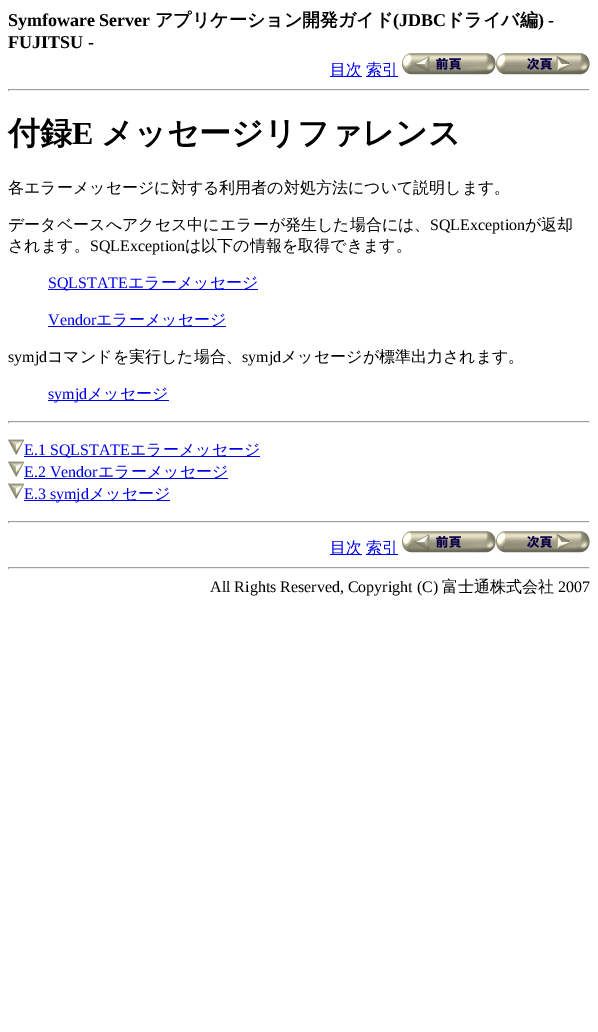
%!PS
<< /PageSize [598 1032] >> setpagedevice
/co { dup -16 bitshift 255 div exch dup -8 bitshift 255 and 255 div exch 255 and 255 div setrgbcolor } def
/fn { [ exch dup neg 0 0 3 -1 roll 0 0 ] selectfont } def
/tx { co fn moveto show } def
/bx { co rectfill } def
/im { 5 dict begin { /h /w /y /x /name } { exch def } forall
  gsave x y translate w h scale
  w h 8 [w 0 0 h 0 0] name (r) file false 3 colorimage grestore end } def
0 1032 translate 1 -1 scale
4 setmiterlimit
0 0 598 1032 16#FFFFFF bx
330 76 32 1 16#0000EE bx
366 76 32 1 16#0000EE bx
(media/1.raw) 402 53 94 22 im
(media/2.raw) 496 53 94 22 im
8 89 582 1 16#9F9F9F bx
589 89 1 2 16#EEEEEE bx
8 90 582 1 16#EEEEEE bx
8 89 1 2 16#9F9F9F bx
48 289 210 1 16#0000EE bx
48 326 178 1 16#0000EE bx
48 400 121 1 16#0000EE bx
8 421 582 1 16#9F9F9F bx
589 421 1 2 16#EEEEEE bx
8 422 582 1 16#EEEEEE bx
8 421 1 2 16#9F9F9F bx
(media/3.raw) 8 439 16 16 im
24 456 236 1 16#0000EE bx
(media/3.raw) 8 461 16 16 im
24 478 204 1 16#0000EE bx
(media/3.raw) 8 483 16 16 im
24 500 146 1 16#0000EE bx
8 521 582 1 16#9F9F9F bx
589 521 1 2 16#EEEEEE bx
8 522 582 1 16#EEEEEE bx
8 521 1 2 16#9F9F9F bx
330 554 32 1 16#0000EE bx
366 554 32 1 16#0000EE bx
(media/1.raw) 402 531 94 22 im
(media/2.raw) 496 531 94 22 im
8 567 582 1 16#9F9F9F bx
589 567 1 2 16#EEEEEE bx
8 568 582 1 16#EEEEEE bx
8 567 1 2 16#9F9F9F bx
(Symfoware Server) 8 26 /LiberationSerif-Bold 18 16#000000 tx
(アプリケーション開発ガイド) 155 26 /WenQuanYiZenHei-Bold 18 16#000000 tx
(\(JDBC) 393 26 /LiberationSerif-Bold 18 16#000000 tx
(ドライバ編) 446 26 /WenQuanYiZenHei-Bold 18 16#000000 tx
(\) -) 538 26 /LiberationSerif-Bold 18 16#000000 tx
(FUJITSU -) 8 48 /LiberationSerif-Bold 18 16#000000 tx
(目次) 330 75 /WenQuanYiZenHei-Medium 16 16#0000EE tx
(索引) 366 75 /WenQuanYiZenHei-Medium 16 16#0000EE tx
(付録) 8 144 /WenQuanYiZenHei-Bold 32 16#000000 tx
(E) 72 144 /LiberationSerif-Bold 32 16#000000 tx
(メッセージリファレンス) 101 144 /WenQuanYiZenHei-Bold 32 16#000000 tx
(各エラーメッセージに対する利用者の対処方法について説明します。) 8 193 /WenQuanYiZenHei-Medium 16 16#000000 tx
(データベースへアクセス中にエラーが発生した場合には、) 8 230 /WenQuanYiZenHei-Medium 16 16#000000 tx
(SQLException) 430 230 /LiberationSerif-Regular 16 16#000000 tx
(が返却) 525 230 /WenQuanYiZenHei-Medium 16 16#000000 tx
(されます。) 8 251 /WenQuanYiZenHei-Medium 16 16#000000 tx
(SQLException) 90 251 /LiberationSerif-Regular 16 16#000000 tx
(は以下の情報を取得できます。) 185 251 /WenQuanYiZenHei-Medium 16 16#000000 tx
(SQLSTATE) 48 288 /LiberationSerif-Regular 16 16#0000EE tx
(エラーメッセージ) 128 288 /WenQuanYiZenHei-Medium 16 16#0000EE tx
(Vendor) 48 325 /LiberationSerif-Regular 16 16#0000EE tx
(エラーメッセージ) 96 325 /WenQuanYiZenHei-Medium 16 16#0000EE tx
(symjd) 8 362 /LiberationSerif-Regular 16 16#000000 tx
(コマンドを実行した場合、) 47 362 /WenQuanYiZenHei-Medium 16 16#000000 tx
(symjd) 242 362 /LiberationSerif-Regular 16 16#000000 tx
(メッセージが標準出力されます。) 281 362 /WenQuanYiZenHei-Medium 16 16#000000 tx
(symjd) 48 399 /LiberationSerif-Regular 16 16#0000EE tx
(メッセージ) 87 399 /WenQuanYiZenHei-Medium 16 16#0000EE tx
(E.1 SQLSTATE) 24 455 /LiberationSerif-Regular 16 16#0000EE tx
(エラーメッセージ) 130 455 /WenQuanYiZenHei-Medium 16 16#0000EE tx
(E.2 Vendor) 24 477 /LiberationSerif-Regular 16 16#0000EE tx
(エラーメッセージ) 98 477 /WenQuanYiZenHei-Medium 16 16#0000EE tx
(E.3 symjd) 24 499 /LiberationSerif-Regular 16 16#0000EE tx
(メッセージ) 89 499 /WenQuanYiZenHei-Medium 16 16#0000EE tx
(目次) 330 553 /WenQuanYiZenHei-Medium 16 16#0000EE tx
(索引) 366 553 /WenQuanYiZenHei-Medium 16 16#0000EE tx
(All Rights Reserved, Copyright \(C\)) 210 592 /LiberationSerif-Regular 16 16#000000 tx
(富士通株式会社) 442 592 /WenQuanYiZenHei-Medium 16 16#000000 tx
(2007) 558 592 /LiberationSerif-Regular 16 16#000000 tx
showpage
